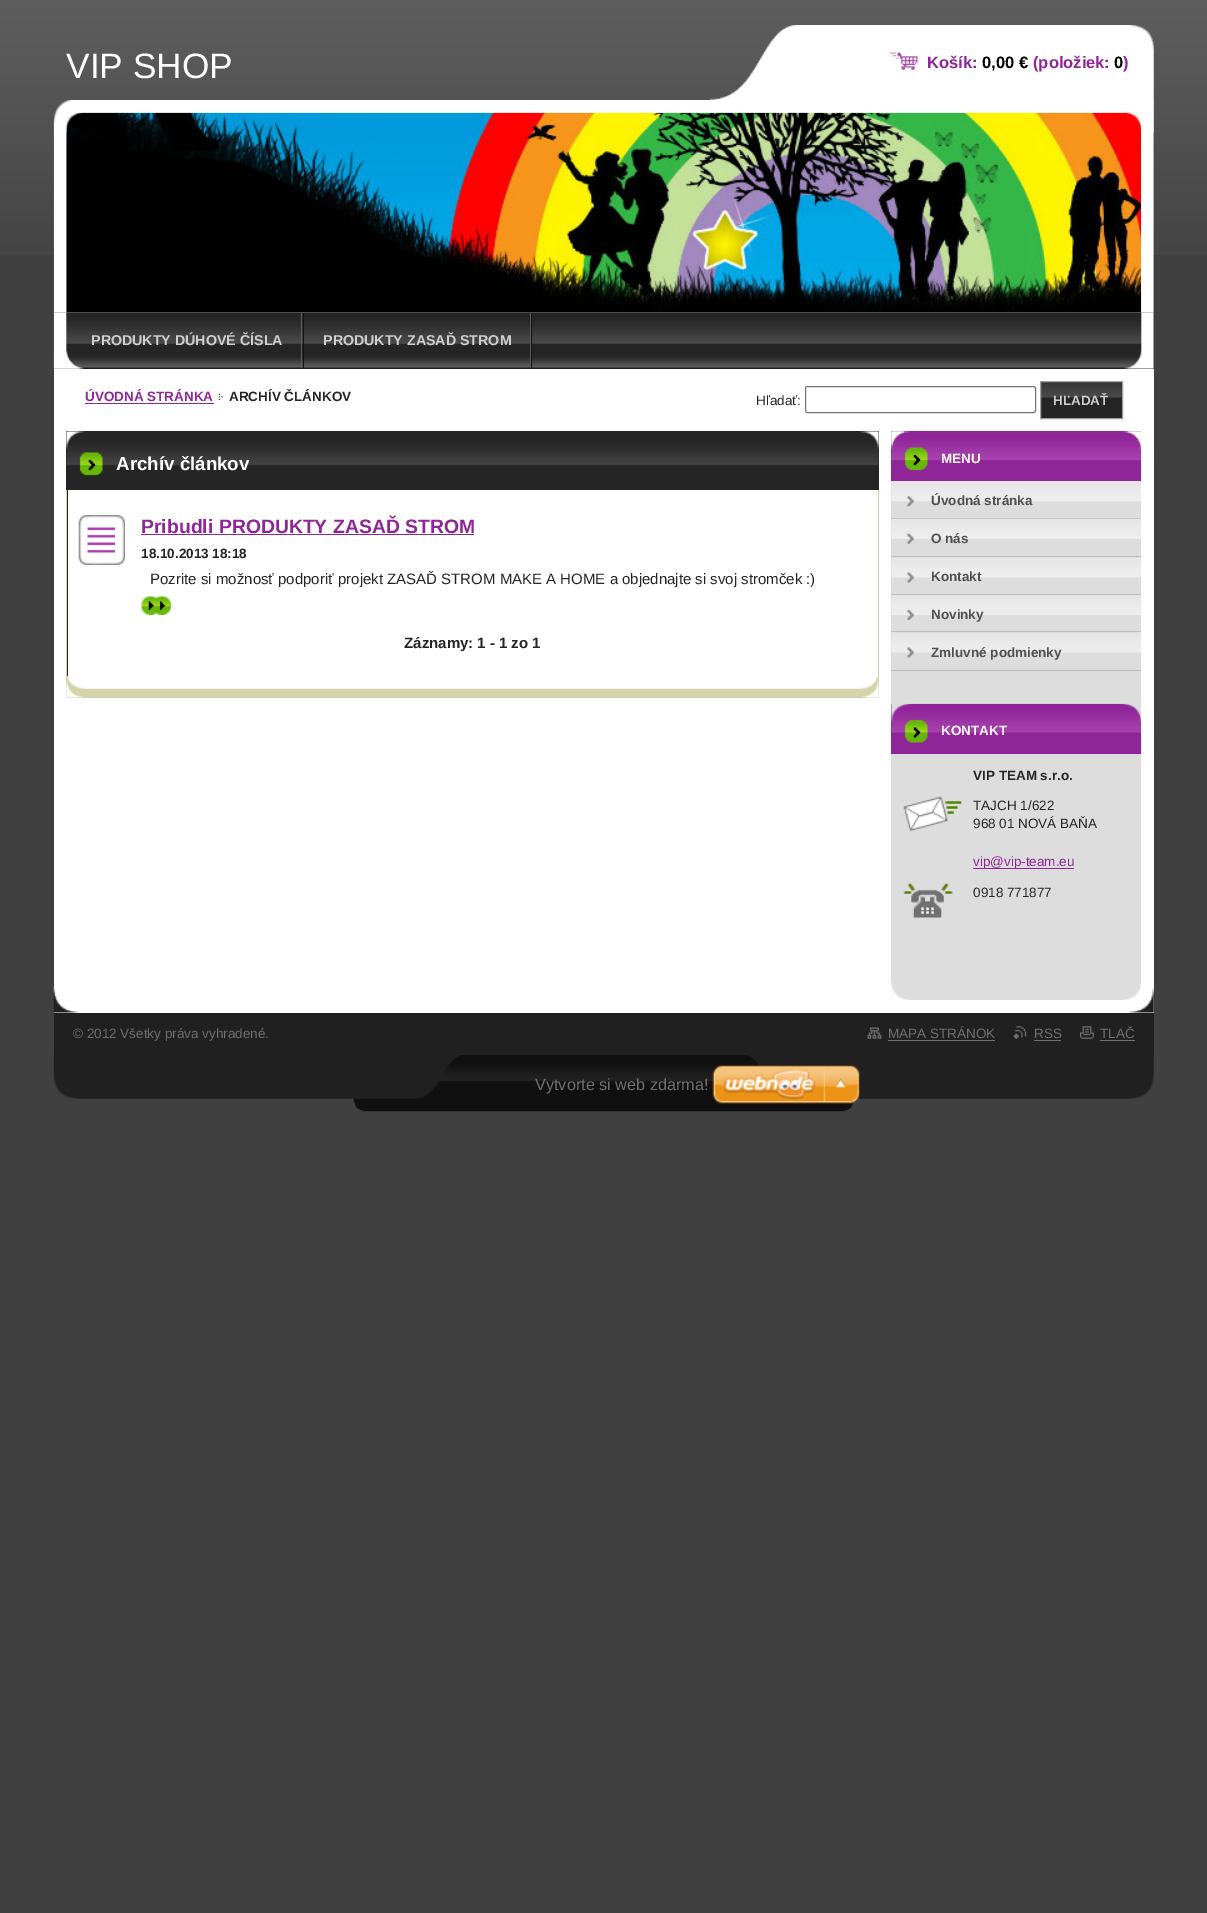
%!PS
<< /PageSize [1207 1913] >> setpagedevice
/st/stroke load def
/gs/gsave load def
/gr/grestore load def
/co { dup -16 bitshift 255 div exch dup -8 bitshift 255 and 255 div exch 255 and 255 div setrgbcolor } def
/fn { [ exch dup neg 0 0 3 -1 roll 0 0 ] selectfont } def
/tx { co fn moveto show } def
/bx { co rectfill } def
/rr { 5 dict begin { /r /h /w /y /x } { exch def } forall
  x r add y moveto x w add y 2 copy h add r arct x w add y h add x 1 index r arct
  x y h add x y r arct x y 2 copy exch w add exch r arct closepath end } def
/im { 5 dict begin { /h /w /y /x /name } { exch def } forall
  gsave x y translate w h scale
  w h 8 [w 0 0 h 0 0] name (r) file false 3 colorimage grestore end } def
0 1913 translate 1 -1 scale
4 setmiterlimit
0 0 1207 1913 16#404040 bx
(media/1.raw) 0 0 1207 255 im
(media/2.raw) 53 100 1101 213 im
(media/4.raw) 66 112 1076 201 im
(media/3.raw) 53 100 1101 33 im
54 313 1100 56 16#222222 bx
(media/5.raw) 53 312 1101 57 im
303 313 1 55 16#101010 bx
301 313 1 55 16#5F5F5F bx
531 313 1 55 16#101010 bx
530 313 1 55 16#5F5F5F bx
(media/6.raw) 53 351 30 18 im
(media/7.raw) 710 25 444 75 im
(media/8.raw) 890 52 28 18 im
54 369 1100 644 16#FFFFFF bx
85 403 129 1 16#902599 bx
(media/9.raw) 218 393 5 7 im
16#767676 co
805.5 386.5 230 26 2 rr st
1041 397 81 21 16#252525 bx
(media/10.raw) 1041 382 81 16 im
16#A0A0A0 co
1040.5 381.5 82 37 rectstroke
(media/11.raw) 53 987 1101 26 im
66 431 813 246 16#252525 bx
(media/12.raw) 66 431 813 19 im
68 490 810 187 16#FFFFFF bx
878 490 1 199 16#D3D4AA bx
67 689 812 9 16#D3D4AA bx
66 490 1 208 16#D3D4AA bx
(media/13.raw) 66 676 813 22 im
(media/14.raw) 66 450 813 26 im
(media/15.raw) 78 515 47 50 im
141 534 333 1 16#902599 bx
(media/16.raw) 141 596 31 19 im
891 519 250 481 16#DDDDDD bx
(media/17.raw) 891 981 251 19 im
891 431 250 50 16#902599 bx
(media/19.raw) 891 431 251 50 im
(media/18.raw) 891 431 250 15 im
891 481 250 37 16#DDDDDD bx
(media/20.raw) 891 481 250 26 im
891 518 250 1 16#BBBBBB bx
(media/21.raw) 891 518 250 26 im
891 556 250 1 16#BBBBBB bx
(media/22.raw) 891 557 250 26 im
891 594 250 1 16#BBBBBB bx
(media/23.raw) 891 595 250 25 im
891 631 250 1 16#BBBBBB bx
(media/22.raw) 891 632 250 26 im
891 670 250 1 16#BBBBBB bx
891 704 250 50 16#902599 bx
(media/24.raw) 891 703 251 51 im
(media/25.raw) 903 796 59 36 im
973 868 101 1 16#902599 bx
(media/26.raw) 903 883 50 35 im
54 1013 1100 98 16#202020 bx
(media/27.raw) 867 1027 15 12 im
888 1040 107 1 16#707070 bx
(media/28.raw) 1013 1026 14 13 im
1034 1040 27 1 16#707070 bx
(media/29.raw) 1080 1026 15 13 im
1100 1040 35 1 16#707070 bx
(media/30.raw) 53 1055 1101 57 im
(media/31.raw) 712 1065 148 39 im
(VIP SHOP) 66 78 /LiberationSans-Regular 35.25 16#FFFFFF tx
(PRODUKTY DÚHOVÉ ČÍSLA) 91 345 /LiberationSans-Bold 14.25 16#D0D0D0 tx
(PRODUKTY ZASAĎ STROM) 323 345 /LiberationSans-Bold 14.25 16#D0D0D0 tx
(Košík:) 927 68 /LiberationSans-Bold 16.5 16#902599 tx
(0,00 €) 982 68 /LiberationSans-Bold 16.5 16#000000 tx
(\(položiek:) 1033 68 /LiberationSans-Bold 16.5 16#902599 tx
(0) 1114 68 /LiberationSans-Bold 16.5 16#000000 tx
(\)) 1123 68 /LiberationSans-Bold 16.5 16#902599 tx
(ÚVODNÁ STRÁNKA) 85 401 /LiberationSans-Bold 13.5 16#902599 tx
(ARCHÍV ČLÁNKOV) 229 401 /LiberationSans-Bold 13.5 16#252525 tx
(Hľadať:) 756 405 /LiberationSans-Regular 13.5 16#252525 tx
(HĽADAŤ) 1053 405 /LiberationSans-Bold 13.5 16#D0D0D0 tx
(Archív článkov) 116 470 /LiberationSans-Bold 18.75 16#FFFFFF tx
(Pribudli PRODUKTY ZASAĎ STROM) 141 533 /LiberationSans-Bold 19.4 16#902599 tx
(18.10.2013 18:18) 141 558 /LiberationSans-Bold 13.5 16#252525 tx
(Pozrite si možnosť podporiť projekt ZASAĎ STROM MAKE A HOME a objednajte si svoj stromček :\)) 150 584 /LiberationSans-Regular 15 16#252525 tx
(Záznamy: 1 - 1 zo 1) 404 648 /LiberationSans-Bold 15 16#252525 tx
(MENU) 941 463 /LiberationSans-Bold 13.5 16#FFFFFF tx
(Úvodná stránka) 931 505 /LiberationSans-Bold 13.5 16#505050 tx
(O nás) 931 543 /LiberationSans-Bold 13.5 16#505050 tx
(Kontakt) 931 581 /LiberationSans-Bold 13.5 16#505050 tx
(Novinky) 931 619 /LiberationSans-Bold 13.5 16#505050 tx
(Zmluvné podmienky) 931 657 /LiberationSans-Bold 13.5 16#505050 tx
(KONTAKT) 941 735 /LiberationSans-Bold 13.5 16#FFFFFF tx
(VIP TEAM s.r.o.) 973 780 /LiberationSans-Bold 13.5 16#252525 tx
(TAJCH 1/622) 973 810 /LiberationSans-Regular 13.5 16#252525 tx
(968 01 NOVÁ BAŇA) 973 828 /LiberationSans-Regular 13.5 16#252525 tx
(vip@vip-team.eu) 973 866 /LiberationSans-Regular 13.5 16#902599 tx
(0918 771877) 973 897 /LiberationSans-Regular 13.5 16#252525 tx
gs
73 1025 587 18 rectclip
(© 2012 Všetky práva vyhradené.) 73 1038 /LiberationSans-Regular 13.5 16#707070 tx
gr
(MAPA STRÁNOK) 888 1038 /LiberationSans-Regular 13.5 16#707070 tx
(RSS) 1034 1038 /LiberationSans-Regular 13.5 16#707070 tx
(TLAČ) 1100 1038 /LiberationSans-Regular 13.5 16#707070 tx
(Vytvorte si web zdarma!) 535 1090 /LiberationSans-Regular 16.25 16#707070 tx
showpage
